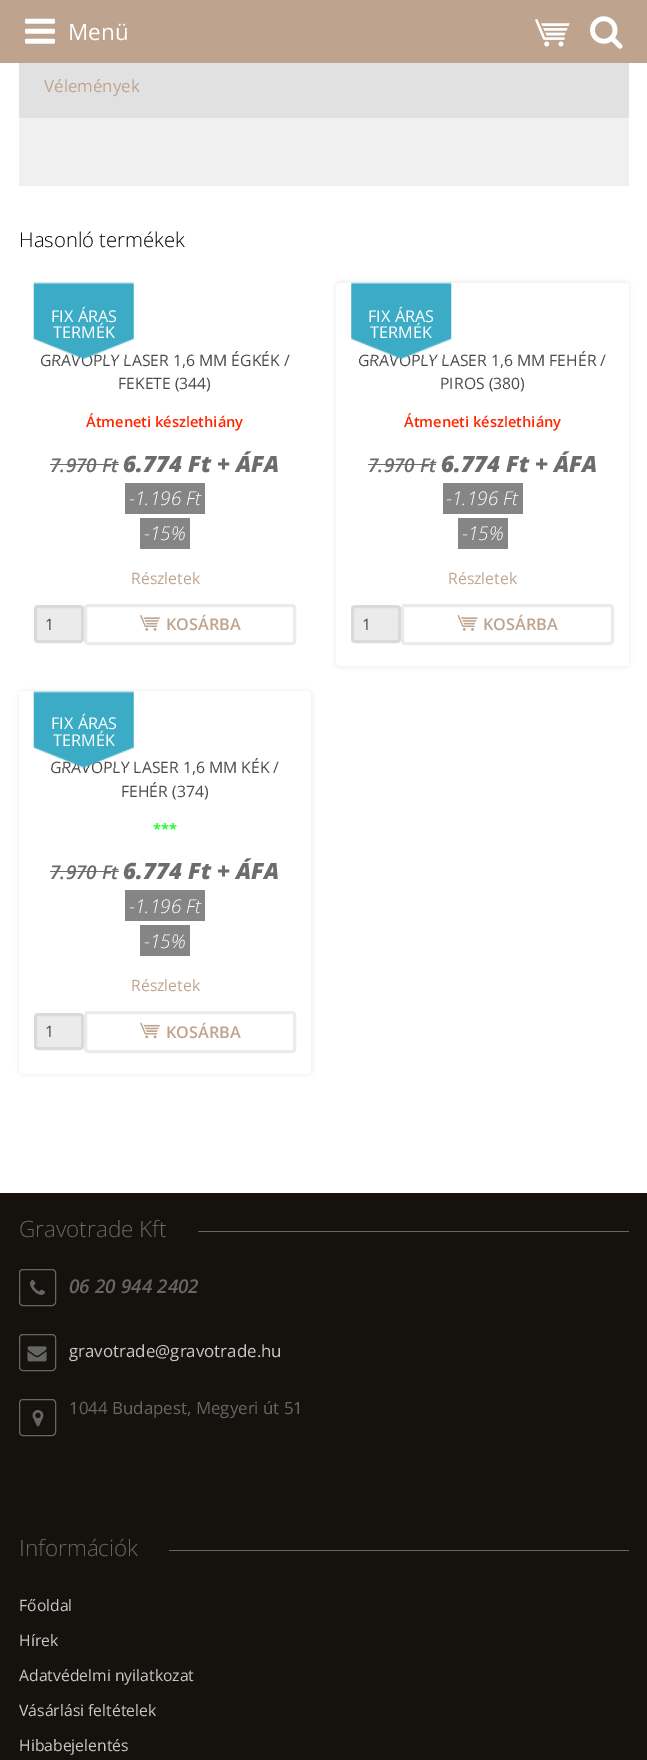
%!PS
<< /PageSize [647 1760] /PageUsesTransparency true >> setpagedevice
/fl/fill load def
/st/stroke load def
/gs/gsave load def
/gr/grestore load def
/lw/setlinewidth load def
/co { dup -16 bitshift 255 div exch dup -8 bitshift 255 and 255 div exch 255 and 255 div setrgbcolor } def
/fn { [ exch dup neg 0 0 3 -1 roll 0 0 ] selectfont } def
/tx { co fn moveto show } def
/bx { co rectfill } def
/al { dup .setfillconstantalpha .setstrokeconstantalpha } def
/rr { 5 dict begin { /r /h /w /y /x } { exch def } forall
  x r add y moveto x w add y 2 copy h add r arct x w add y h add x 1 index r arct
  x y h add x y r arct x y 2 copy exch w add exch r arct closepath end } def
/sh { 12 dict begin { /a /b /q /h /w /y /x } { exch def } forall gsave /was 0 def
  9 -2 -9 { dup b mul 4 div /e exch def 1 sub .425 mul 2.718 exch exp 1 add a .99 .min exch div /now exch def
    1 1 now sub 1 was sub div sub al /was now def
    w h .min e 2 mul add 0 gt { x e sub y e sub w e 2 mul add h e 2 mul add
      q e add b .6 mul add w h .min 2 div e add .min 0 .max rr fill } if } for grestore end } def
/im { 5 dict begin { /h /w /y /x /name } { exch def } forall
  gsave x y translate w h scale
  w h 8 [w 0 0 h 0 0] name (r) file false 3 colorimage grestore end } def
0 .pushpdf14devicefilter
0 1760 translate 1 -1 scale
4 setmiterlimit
0 0 647 1760 16#FFFFFF bx
0 0 647 63 16#BEA48E bx
(media/1.raw) 25 18 30 26 im
(media/2.raw) 535 19 35 28 im
(media/3.raw) 590 16 33 33 im
19 63 610 55 16#E1E1E1 bx
19 118 610 68 16#F0F0F0 bx
50 464 69 1 16#6C6C6C bx
125 483 80 31 16#858585 bx
140 518 50 31 16#858585 bx
16#EBEBEB co
35.5 606.5 47 35 2.5 rr gs fl gr
16#DADADA co
3 lw
st
16#EBEBEB co
85.5 605.5 209 38 2.5 rr st
(media/5.raw) 140 615 20 16 im
16#000000 co
335 281 295 387 5 2 .05 sh
16#FFFFFF co
336 283 293 383 4 rr fl
368 464 68 1 16#6C6C6C bx
443 483 80 31 16#858585 bx
458 518 50 31 16#858585 bx
16#EBEBEB co
352.5 606.5 47 35 2.5 rr gs fl gr
16#DADADA co
st
16#EBEBEB co
402.5 605.5 210 38 2.5 rr st
(media/7.raw) 457 615 21 16 im
16#000000 co
18 690 295 385 5 2 .05 sh
16#FFFFFF co
19 691 292 383 4 rr fl
50 871 69 1 16#6C6C6C bx
125 890 80 31 16#858585 bx
140 925 50 31 16#858585 bx
16#EBEBEB co
35.5 1014.5 47 34 2.5 rr gs fl gr
16#DADADA co
st
16#EBEBEB co
85.5 1012.5 209 39 2.5 rr st
(media/9.raw) 140 1022 20 17 im
0 1193 647 567 16#15120E bx
198 1231 431 1 16#656565 bx
1 lw
19.5 1269.5 36 36 3.5 rr st
(media/10.raw) 30 1280 15 15 im
19.5 1334.5 36 36 3.5 rr st
(media/11.raw) 27 1346 20 16 im
19.5 1399.5 36 36 3.5 rr st
(media/12.raw) 32 1410 12 17 im
169 1550 460 1 16#656565 bx
(Menü) 68 40 /OpenSans-Regular 22.5 16#FFFFFF tx
(Vélemények) 44 92 /OpenSans-Regular 16.9 16#BEA48E tx
(Hasonló termékek) 19 247 /OpenSans-Light 20.25 16#000000 tx
(GRAVOPLY LASER 1,6 MM ÉGKÉK /) 40 366 /OpenSans-Regular 15.75 16#4A4A4A tx
(media/4.raw) 33 282 101 77 im
(TERMÉK) 53 338 /OpenSans-Regular 16.25 16#FFFFFF tx
(FIX ÁRAS) 51 322 /OpenSans-Regular 16.25 16#FFFFFF tx
(FEKETE \(344\)) 118 389 /OpenSans-Regular 15.75 16#4A4A4A tx
(Átmeneti készlethiány) 86 427 /OpenSans-SemiBold 14.6 16#FF2600 tx
(7.970 Ft) 50 472 /OpenSans-SemiBoldItalic 19 16#6C6C6C tx
(6.774 Ft + ÁFA) 123 472 /OpenSans-ExtraBoldItalic 22.5 16#6C6C6C tx
(-1.196 Ft) 129 505 /OpenSans-LightItalic 19 16#FFFFFF tx
(-15%) 144 540 /OpenSans-LightItalic 19 16#FFFFFF tx
(Részletek) 131 584 /OpenSans-Regular 15.75 16#BEA48E tx
(1) 45 630 /OpenSans-Regular 15.75 16#4A4A4A tx
(KOSÁRBA) 166 630 /OpenSans-SemiBold 16.25 16#BEA48E tx
(GRAVOPLY LASER 1,6 MM FEHÉR /) 358 366 /OpenSans-Regular 15.75 16#4A4A4A tx
(media/6.raw) 351 282 101 77 im
(TERMÉK) 370 338 /OpenSans-Regular 16.25 16#FFFFFF tx
(FIX ÁRAS) 368 322 /OpenSans-Regular 16.25 16#FFFFFF tx
(PIROS \(380\)) 440 389 /OpenSans-Regular 15.75 16#4A4A4A tx
(Átmeneti készlethiány) 404 427 /OpenSans-SemiBold 14.6 16#FF2600 tx
(7.970 Ft) 368 472 /OpenSans-SemiBoldItalic 19 16#6C6C6C tx
(6.774 Ft + ÁFA) 441 472 /OpenSans-ExtraBoldItalic 22.5 16#6C6C6C tx
(-1.196 Ft) 446 505 /OpenSans-LightItalic 19 16#FFFFFF tx
(-15%) 462 540 /OpenSans-LightItalic 19 16#FFFFFF tx
(Részletek) 448 584 /OpenSans-Regular 15.75 16#BEA48E tx
(1) 362 630 /OpenSans-Regular 15.75 16#4A4A4A tx
(KOSÁRBA) 483 630 /OpenSans-SemiBold 16.25 16#BEA48E tx
(GRAVOPLY LASER 1,6 MM KÉK /) 50 773 /OpenSans-Regular 15.75 16#4A4A4A tx
(media/8.raw) 33 691 101 77 im
(TERMÉK) 53 746 /OpenSans-Regular 16.25 16#FFFFFF tx
(FIX ÁRAS) 51 729 /OpenSans-Regular 16.25 16#FFFFFF tx
(FEHÉR \(374\)) 121 797 /OpenSans-Regular 15.75 16#4A4A4A tx
(***) 153 834 /OpenSans-SemiBold 14.6 16#00FF11 tx
(7.970 Ft) 50 879 /OpenSans-SemiBoldItalic 19 16#6C6C6C tx
(6.774 Ft + ÁFA) 123 879 /OpenSans-ExtraBoldItalic 22.5 16#6C6C6C tx
(-1.196 Ft) 129 913 /OpenSans-LightItalic 19 16#FFFFFF tx
(-15%) 144 948 /OpenSans-LightItalic 19 16#FFFFFF tx
(Részletek) 131 991 /OpenSans-Regular 15.75 16#BEA48E tx
(1) 45 1037 /OpenSans-Regular 15.75 16#4A4A4A tx
(KOSÁRBA) 166 1038 /OpenSans-SemiBold 16.25 16#BEA48E tx
(Gravotrade Kft) 19 1237 /OpenSans-Light 22.5 16#656565 tx
(06 20 944 2402) 69 1293 /OpenSans-SemiBoldItalic 19 16#656565 tx
(gravotrade@gravotrade.hu) 69 1357 /OpenSans-Regular 16.9 16#C8C8C8 tx
(1044 Budapest, Megyeri út 51) 69 1414 /OpenSans-Regular 16.9 16#656565 tx
(Információk) 19 1556 /OpenSans-Light 22.5 16#656565 tx
(Főoldal) 19 1611 /OpenSans-Regular 15.75 16#C8C8C8 tx
(Hírek) 19 1646 /OpenSans-Regular 15.75 16#C8C8C8 tx
(Adatvédelmi nyilatkozat) 19 1681 /OpenSans-Regular 15.75 16#C8C8C8 tx
(Vásárlási feltételek) 19 1716 /OpenSans-Regular 15.75 16#C8C8C8 tx
(Hibabejelentés) 19 1751 /OpenSans-Regular 15.75 16#C8C8C8 tx
.poppdf14devicefilter showpage
